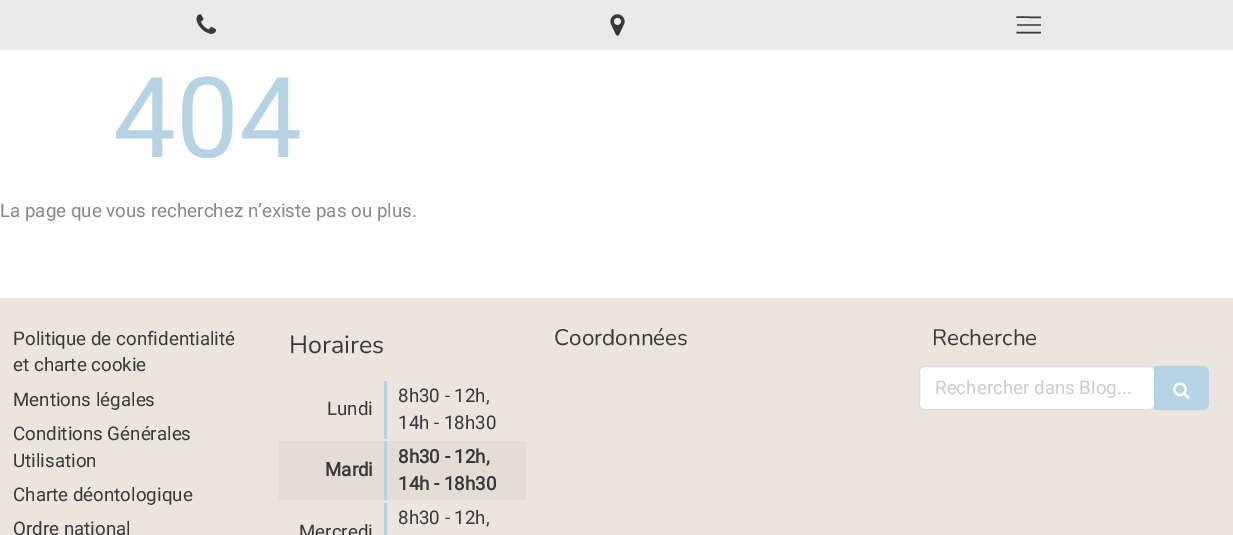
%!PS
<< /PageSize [1233 535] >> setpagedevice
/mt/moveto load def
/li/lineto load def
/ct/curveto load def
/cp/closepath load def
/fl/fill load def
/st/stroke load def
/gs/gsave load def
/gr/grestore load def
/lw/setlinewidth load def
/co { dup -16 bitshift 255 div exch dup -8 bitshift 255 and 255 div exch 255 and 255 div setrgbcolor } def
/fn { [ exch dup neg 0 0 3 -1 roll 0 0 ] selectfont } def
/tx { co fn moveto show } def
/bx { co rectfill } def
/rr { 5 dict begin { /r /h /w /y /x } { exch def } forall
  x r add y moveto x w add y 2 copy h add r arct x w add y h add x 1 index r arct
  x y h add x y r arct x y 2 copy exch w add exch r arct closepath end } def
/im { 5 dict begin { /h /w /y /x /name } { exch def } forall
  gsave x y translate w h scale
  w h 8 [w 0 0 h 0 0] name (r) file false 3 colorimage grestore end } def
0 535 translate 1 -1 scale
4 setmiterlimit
0 0 1233 535 16#FFFFFF bx
0 0 1233 50 16#EAEAEA bx
(media/1.raw) 196 14 21 20 im
(media/2.raw) 610 14 15 22 im
1017 24 24 2 16#656565 bx
16#393939 co
1.5 lw
1016.5 17 mt 1041 17.5 li 1016.5 32.5 mt 1041 32.5 li st
0 298 1233 237 16#EBE5DD bx
384 381 3 58 16#B6D3E5 bx
279 441 247 59 16#E3DDD6 bx
384 441 3 59 16#B6D3E5 bx
384 503 3 32 16#B6D3E5 bx
16#FFFFFF co
919.5 366.5 235 43 4.5 rr gs fl gr
16#DDDDDD co
1 lw
st
16#B6D3E5 co
1154 366 mt 1203 366 li 1206.5 366 1209 368.5 1209 372 ct 1209 404 li 1209 407.5 1206.5 410 1203 410 ct 1154 410 li cp fl
(media/3.raw) 1173 382 17 17 im
(404) 113 157 /Roboto-Regular 112 16#B6D3E5 tx
(La page que vous recherchez n’existe pas ou plus.) 0 217 /Roboto-Regular 18.75 16#888888 tx
(Politique de confidentialité) 13 345 /Roboto-Regular 18.75 16#393939 tx
(et charte cookie) 13 371 /Roboto-Regular 18.75 16#393939 tx
(Mentions légales) 13 406 /Roboto-Regular 18.75 16#393939 tx
(Conditions Générales) 13 440 /Roboto-Regular 18.75 16#393939 tx
(Utilisation) 13 467 /Roboto-Regular 18.75 16#393939 tx
(Charte déontologique) 13 501 /Roboto-Regular 18.75 16#393939 tx
(Ordre national) 13 535 /Roboto-Regular 18.75 16#393939 tx
(Horaires) 289 353 /Nunito-Regular 25 16#393939 tx
(Lundi) 327 415 /Roboto-Regular 18.75 16#393939 tx
(8h30 - 12h,) 398 402 /Roboto-Regular 18.75 16#393939 tx
(14h - 18h30) 398 429 /Roboto-Regular 18.75 16#393939 tx
(Mardi) 325 476 /Roboto-Bold 18.75 16#393939 tx
(8h30 - 12h,) 398 463 /Roboto-Bold 18.75 16#393939 tx
(14h - 18h30) 398 490 /Roboto-Bold 18.75 16#393939 tx
(8h30 - 12h,) 398 524 /Roboto-Regular 18.75 16#393939 tx
(Mercredi) 299 538 /Roboto-Regular 18.75 16#393939 tx
(Coordonnées) 554 345 /Nunito-Regular 22.5 16#393939 tx
(Recherche) 932 345 /Nunito-Regular 22.5 16#393939 tx
(Rechercher dans Blog...) 935 394 /Roboto-Regular 18.75 16#CCCCCC tx
showpage
